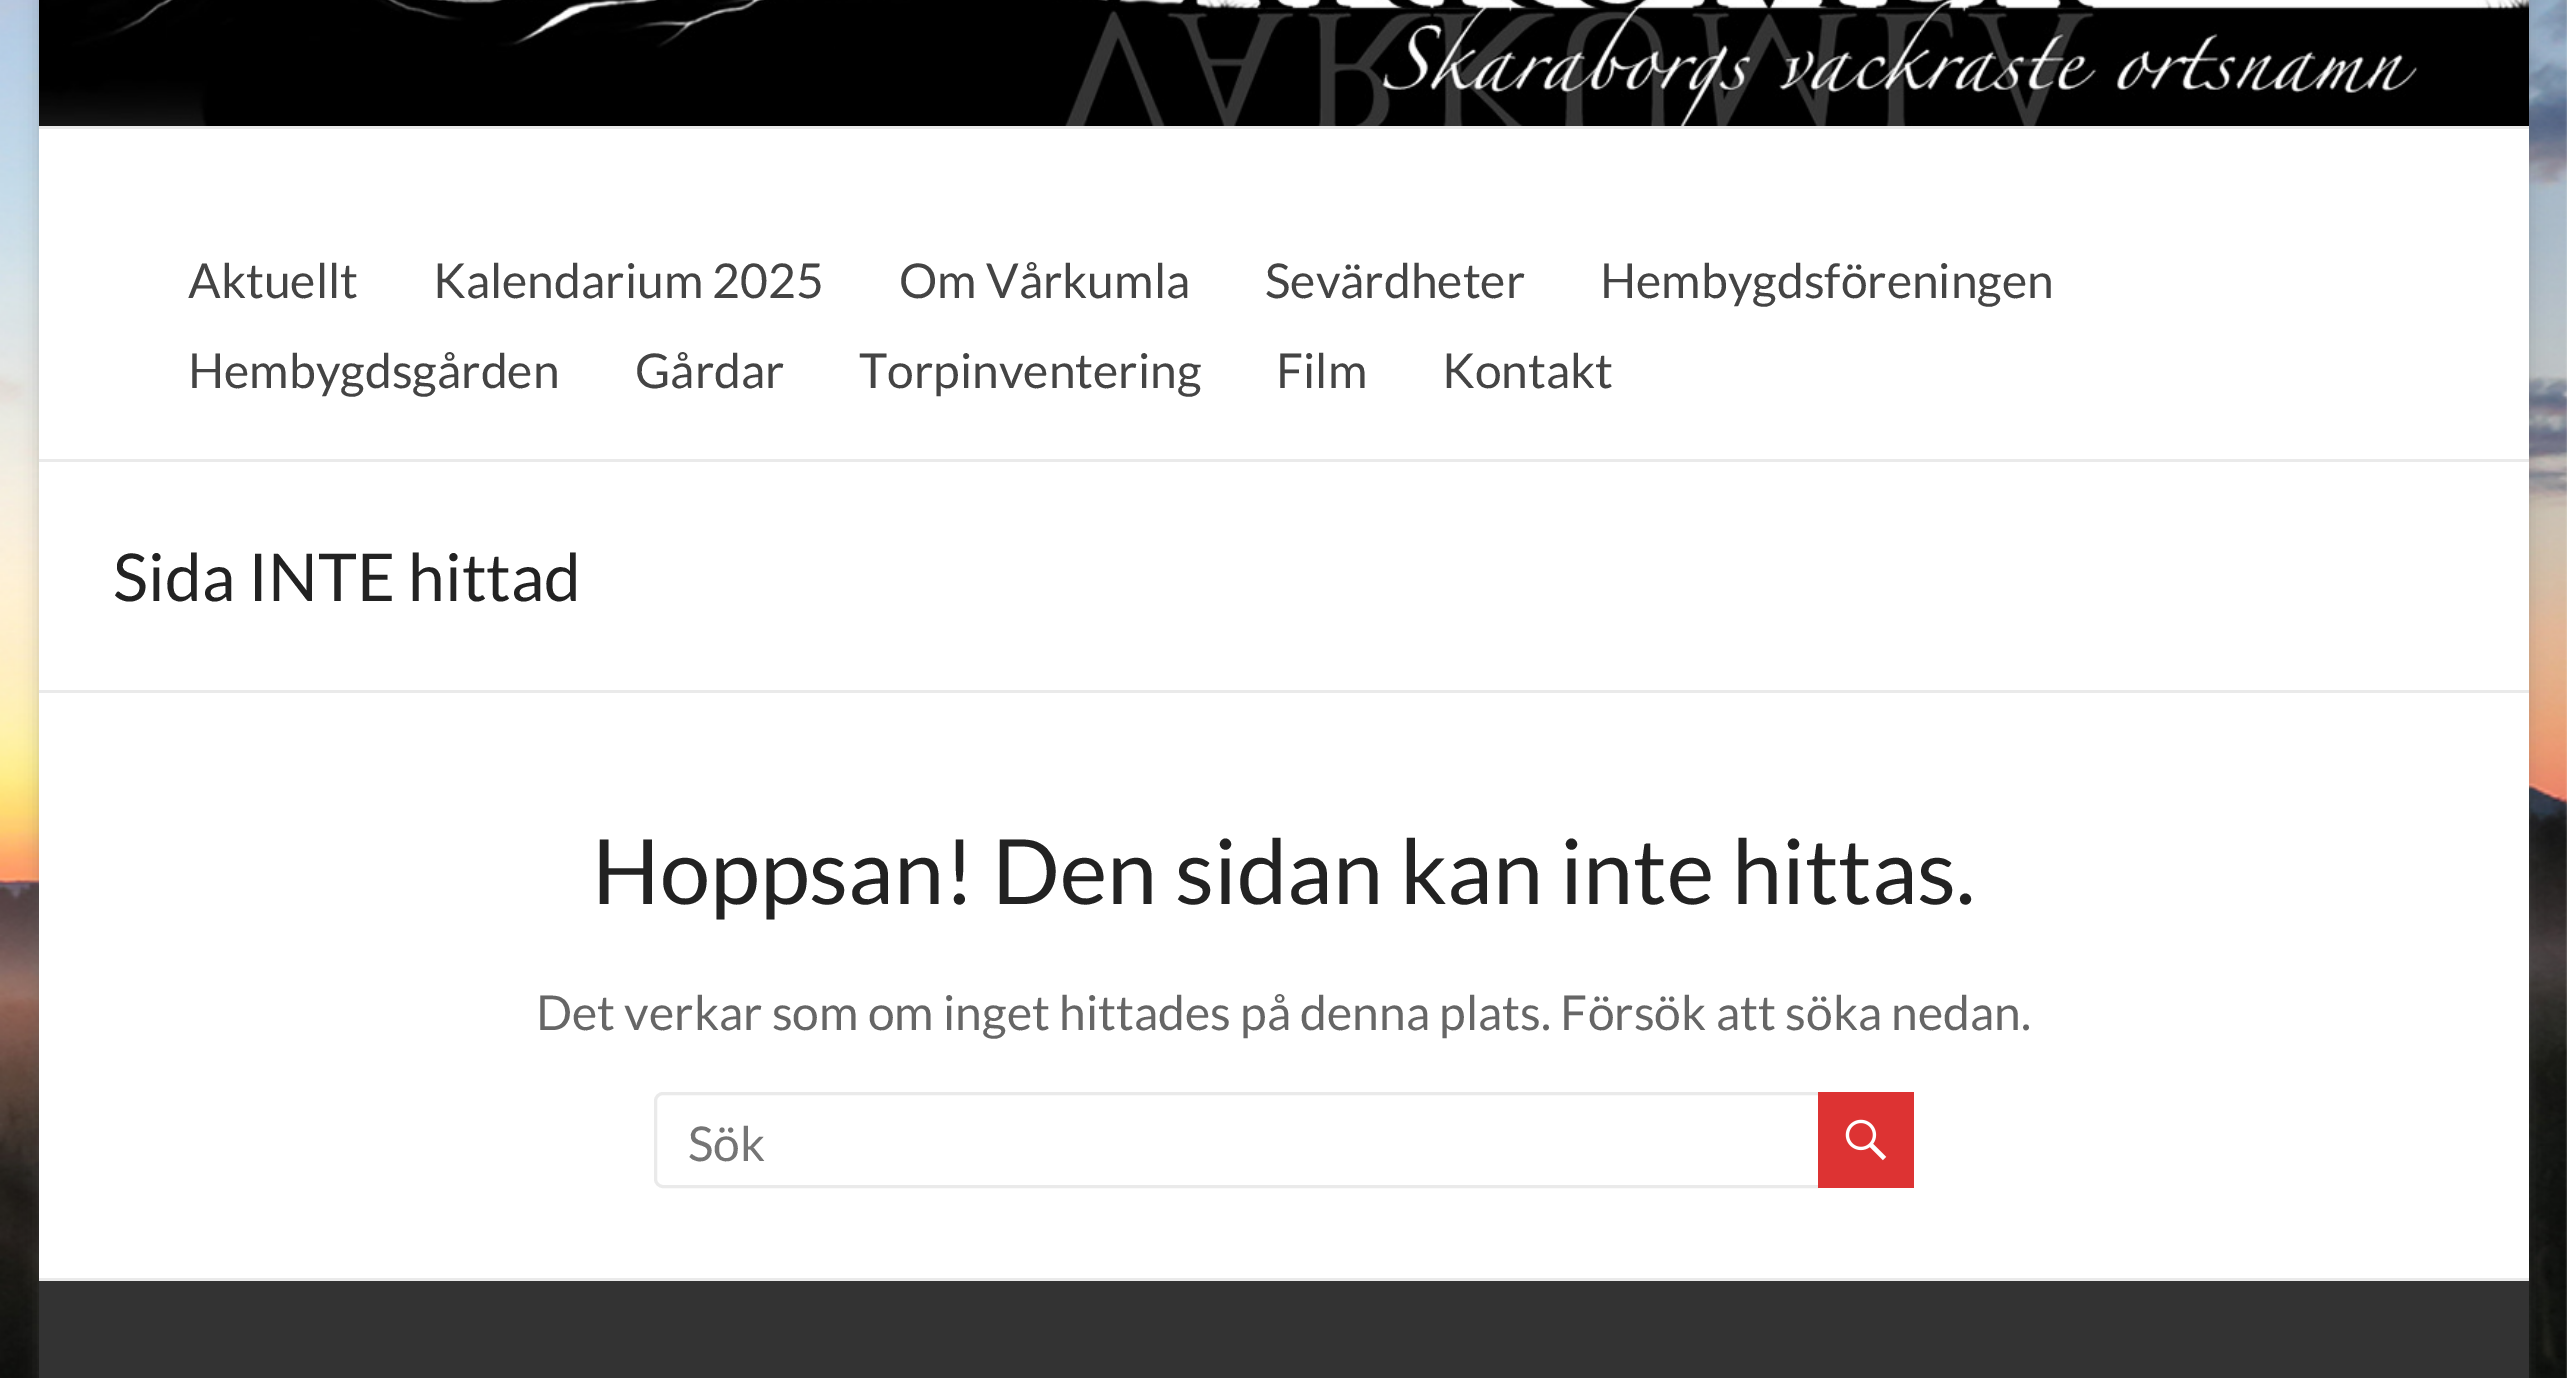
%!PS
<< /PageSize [2567 1378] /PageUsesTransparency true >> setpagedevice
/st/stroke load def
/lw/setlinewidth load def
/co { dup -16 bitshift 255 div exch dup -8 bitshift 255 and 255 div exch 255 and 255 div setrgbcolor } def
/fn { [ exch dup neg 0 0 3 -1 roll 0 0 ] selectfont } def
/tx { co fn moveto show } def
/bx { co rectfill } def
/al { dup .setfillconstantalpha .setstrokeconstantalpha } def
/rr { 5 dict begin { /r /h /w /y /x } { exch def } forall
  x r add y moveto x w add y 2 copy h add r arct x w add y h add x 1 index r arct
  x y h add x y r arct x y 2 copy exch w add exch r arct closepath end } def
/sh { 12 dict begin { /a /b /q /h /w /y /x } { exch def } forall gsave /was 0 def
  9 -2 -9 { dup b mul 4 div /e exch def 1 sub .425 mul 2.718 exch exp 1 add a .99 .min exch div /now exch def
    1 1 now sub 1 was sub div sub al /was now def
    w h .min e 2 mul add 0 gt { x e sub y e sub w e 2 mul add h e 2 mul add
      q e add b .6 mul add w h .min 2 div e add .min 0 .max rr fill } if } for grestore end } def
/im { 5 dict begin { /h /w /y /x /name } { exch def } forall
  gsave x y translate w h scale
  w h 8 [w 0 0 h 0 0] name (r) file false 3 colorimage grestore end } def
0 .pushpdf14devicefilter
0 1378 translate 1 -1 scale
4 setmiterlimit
0 0 2567 1378 16#FFFFFF bx
(media/1.raw) 0 0 2567 1378 im
16#646464 co
39 -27 2490 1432 0 9 .3 sh
39 129 2490 1149 16#FFFFFF bx
(media/2.raw) 39 0 2490 126 im
39 126 2490 3 16#EAEAEA bx
39 459 2490 3 16#EAEAEA bx
39 690 2490 3 16#EAEAEA bx
3 lw
655.5 1093.5 1170 93 7.5 rr st
1818 1092 96 96 16#DD3333 bx
(media/3.raw) 1845 1119 42 42 im
39 1281 2490 97 16#333333 bx
39 1278 2490 3 16#EAEAEA bx
(Aktuellt) 188 298 /Lato-Regular 48 16#444444 tx
(Kalendarium 2025) 433 298 /Lato-Regular 48 16#444444 tx
(Om Vårkumla) 899 298 /Lato-Regular 48 16#444444 tx
(Sevärdheter) 1265 298 /Lato-Regular 48 16#444444 tx
(Hembygdsföreningen) 1600 298 /Lato-Regular 48 16#444444 tx
(Hembygdsgården) 188 388 /Lato-Regular 48 16#444444 tx
(Gårdar) 635 388 /Lato-Regular 48 16#444444 tx
(Torpinventering) 859 388 /Lato-Regular 48 16#444444 tx
(Film) 1276 388 /Lato-Regular 48 16#444444 tx
(Kontakt) 1442 388 /Lato-Regular 48 16#444444 tx
(Sida INTE hittad) 113 601 /Lato-Regular 66 16#222222 tx
(Hoppsan! Den sidan kan inte hittas.) 592 904 /Lato-Regular 90 16#222222 tx
(Det verkar som om inget hittades på denna plats. Försök att söka nedan.) 536 1030 /Lato-Regular 48 16#666666 tx
(Sök) 688 1161 /Lato-Regular 48 16#757575 tx
.poppdf14devicefilter showpage
